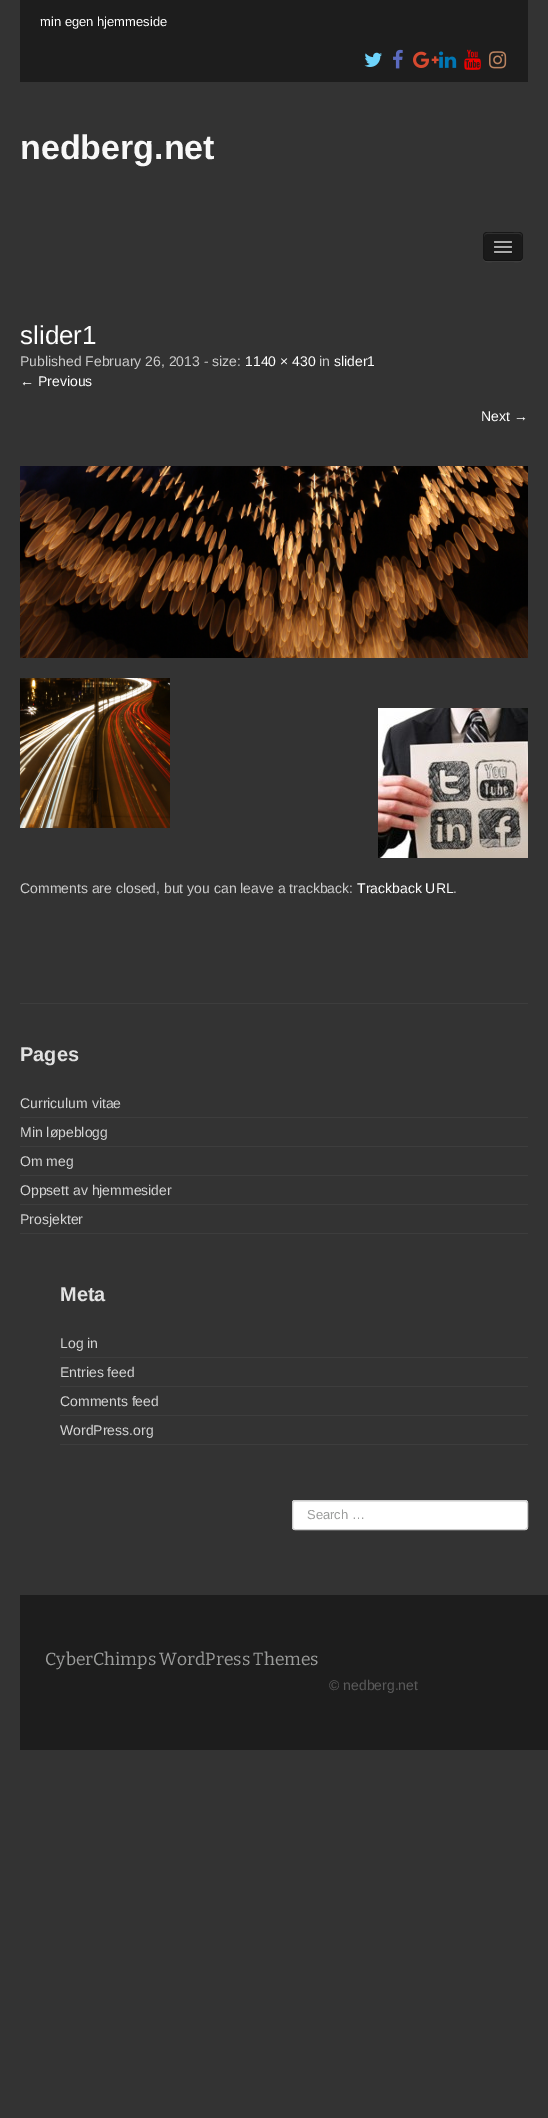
%!PS
<< /PageSize [548 2118] /PageUsesTransparency true >> setpagedevice
/mt/moveto load def
/li/lineto load def
/ct/curveto load def
/cp/closepath load def
/fl/fill load def
/st/stroke load def
/co { dup -16 bitshift 255 div exch dup -8 bitshift 255 and 255 div exch 255 and 255 div setrgbcolor } def
/fn { [ exch dup neg 0 0 3 -1 roll 0 0 ] selectfont } def
/tx { co fn moveto show } def
/bx { co rectfill } def
/al { dup .setfillconstantalpha .setstrokeconstantalpha } def
/rr { 5 dict begin { /r /h /w /y /x } { exch def } forall
  x r add y moveto x w add y 2 copy h add r arct x w add y h add x 1 index r arct
  x y h add x y r arct x y 2 copy exch w add exch r arct closepath end } def
/im { 5 dict begin { /h /w /y /x /name } { exch def } forall
  gsave x y translate w h scale
  w h 8 [w 0 0 h 0 0] name (r) file false 3 colorimage grestore end } def
0 .pushpdf14devicefilter
0 2118 translate 1 -1 scale
4 setmiterlimit
0 0 548 2118 16#333333 bx
20 0 508 82 16#1D1D1D bx
(media/1.raw) 364 52 18 15 im
(media/2.raw) 393 49 10 20 im
(media/3.raw) 413 51 26 17 im
(media/4.raw) 439 51 18 17 im
(media/5.raw) 464 49 17 21 im
(media/6.raw) 489 51 18 18 im
16#424242 co
483 257 mt 483 263 488 262 492 262 ct 514 262 li 518 262 523 263 523 257 ct 523 259 521 261 519 261 ct 487 261 li 485 261 483 259 483 257 ct cp fl
16#1A1A1A co
483 232 40 29 4 rr fl
16#313131 co
487 234 mt 519 234 li 521 234 522 235 522 237 ct 522 232 518 233 513.5 233 ct 492.5 233 li 488 233 484 232 484 237 ct 484 235 485 234 487 234 ct cp fl
0.25 al
16#000000 co
521.5 259.5 mt 521 260 520 260.5 519 260.5 ct 487 260.5 li 486 260.5 485 260 484.5 259.5 ct st
0.1 al
484.5 259.5 mt 484 259 483.5 258 483.5 257 ct 483.5 236 li 483.5 235 484 234 484.5 233.5 ct 485 233 486 232.5 487 232.5 ct 519 232.5 li 520 232.5 521 233 521.5 233.5 ct 522 234 522.5 235 522.5 236 ct 522.5 257 li 522.5 258 522 259 521.5 259.5 ct st
1 al
16#141414 co
494 242.5 mt 493 244.5 497.5 244 497.5 244 ct 508.5 244 li 508.5 244 513 244.5 512 242.5 ct 511 243.5 504.5 243 503 243 ct 501.5 243 495 243.5 494 242.5 ct cp fl
16#AAAAAA co
494 241 18 2 1 rr fl
16#141414 co
494 247.5 mt 493 249.5 497.5 249 497.5 249 ct 508.5 249 li 508.5 249 513 249.5 512 247.5 ct 511 248.5 504.5 248 503 248 ct 501.5 248 495 248.5 494 247.5 ct cp fl
16#AAAAAA co
494 246 18 2 1 rr fl
16#141414 co
494 252.5 mt 493 254.5 497.5 254 497.5 254 ct 508.5 254 li 508.5 254 513 254.5 512 252.5 ct 511 253.5 504.5 253 503 253 ct 501.5 253 495 253.5 494 252.5 ct cp fl
16#AAAAAA co
494 251 18 2 1 rr fl
(media/7.raw) 20 466 508 192 im
(media/8.raw) 20 678 150 150 im
(media/9.raw) 378 708 150 150 im
20 1003 508 1 16#3D3D3D bx
20 1117 508 1 16#3D3D3D bx
20 1146 508 1 16#3D3D3D bx
20 1175 508 1 16#3D3D3D bx
20 1204 508 1 16#3D3D3D bx
20 1233 508 1 16#3D3D3D bx
60 1357 468 1 16#3D3D3D bx
60 1386 468 1 16#3D3D3D bx
60 1415 468 1 16#3D3D3D bx
60 1444 468 1 16#3D3D3D bx
16#FFFFFF co
292 1500 236 30 3 rr fl
16#ECECEC co
295 1502 mt 525 1502 li 526 1502 527 1503 527 1504 ct 527 1502 li 525 1501 li 295 1501 li 293 1501 293 1503 293 1504 ct 293 1503 294 1502 295 1502 ct cp fl
16#CCCCCC co
292.5 1500.5 235 29 2.5 rr st
20 1595 528 155 16#1D1D1D bx
(min egen hjemmeside) 40 26 /LiberationSans-Regular 13 16#FFFFFF tx
(nedberg.net) 20 159 /LiberationSans-Bold 34 16#F8F8F8 tx
(slider1) 20 344 /LiberationSans-Regular 26 16#FFFFFF tx
(Published February 26, 2013 - size:) 20 366 /LiberationSans-Regular 14 16#CCCCCC tx
(1140 × 430) 245 366 /LiberationSans-Regular 14 16#FFFFFF tx
(in) 319 366 /LiberationSans-Regular 14 16#CCCCCC tx
(slider1) 334 366 /LiberationSans-Regular 14 16#FFFFFF tx
(← Previous) 20 386 /LiberationSans-Regular 14 16#FFFFFF tx
(Next →) 481 421 /LiberationSans-Regular 14 16#FFFFFF tx
(Comments are closed, but you can leave a trackback:) 20 893 /LiberationSans-Regular 14 16#CCCCCC tx
(Trackback URL) 357 893 /LiberationSans-Regular 14 16#FFFFFF tx
(.) 453 893 /LiberationSans-Regular 14 16#CCCCCC tx
(Pages) 20 1061 /LiberationSans-Bold 20 16#E1E1E1 tx
(Curriculum vitae) 20 1108 /LiberationSans-Regular 14 16#D4D4D4 tx
(Min løpeblogg) 20 1137 /LiberationSans-Regular 14 16#D4D4D4 tx
(Om meg) 20 1166 /LiberationSans-Regular 14 16#D4D4D4 tx
(Oppsett av hjemmesider) 20 1195 /LiberationSans-Regular 14 16#D4D4D4 tx
(Prosjekter) 20 1224 /LiberationSans-Regular 14 16#D4D4D4 tx
(Meta) 60 1301 /LiberationSans-Bold 20 16#E1E1E1 tx
(Log in) 60 1348 /LiberationSans-Regular 14 16#D4D4D4 tx
(Entries feed) 60 1377 /LiberationSans-Regular 14 16#D4D4D4 tx
(Comments feed) 60 1406 /LiberationSans-Regular 14 16#D4D4D4 tx
(WordPress.org) 60 1435 /LiberationSans-Regular 14 16#D4D4D4 tx
(Search …) 307 1519 /LiberationSans-Regular 13 16#9B9C9B tx
(CyberChimps WordPress Themes) 45 1665 /Bitter-Thin 17.5 16#9B9C9B tx
(© nedberg.net) 329 1690 /LiberationSans-Regular 14 16#5A5A5A tx
.poppdf14devicefilter showpage
